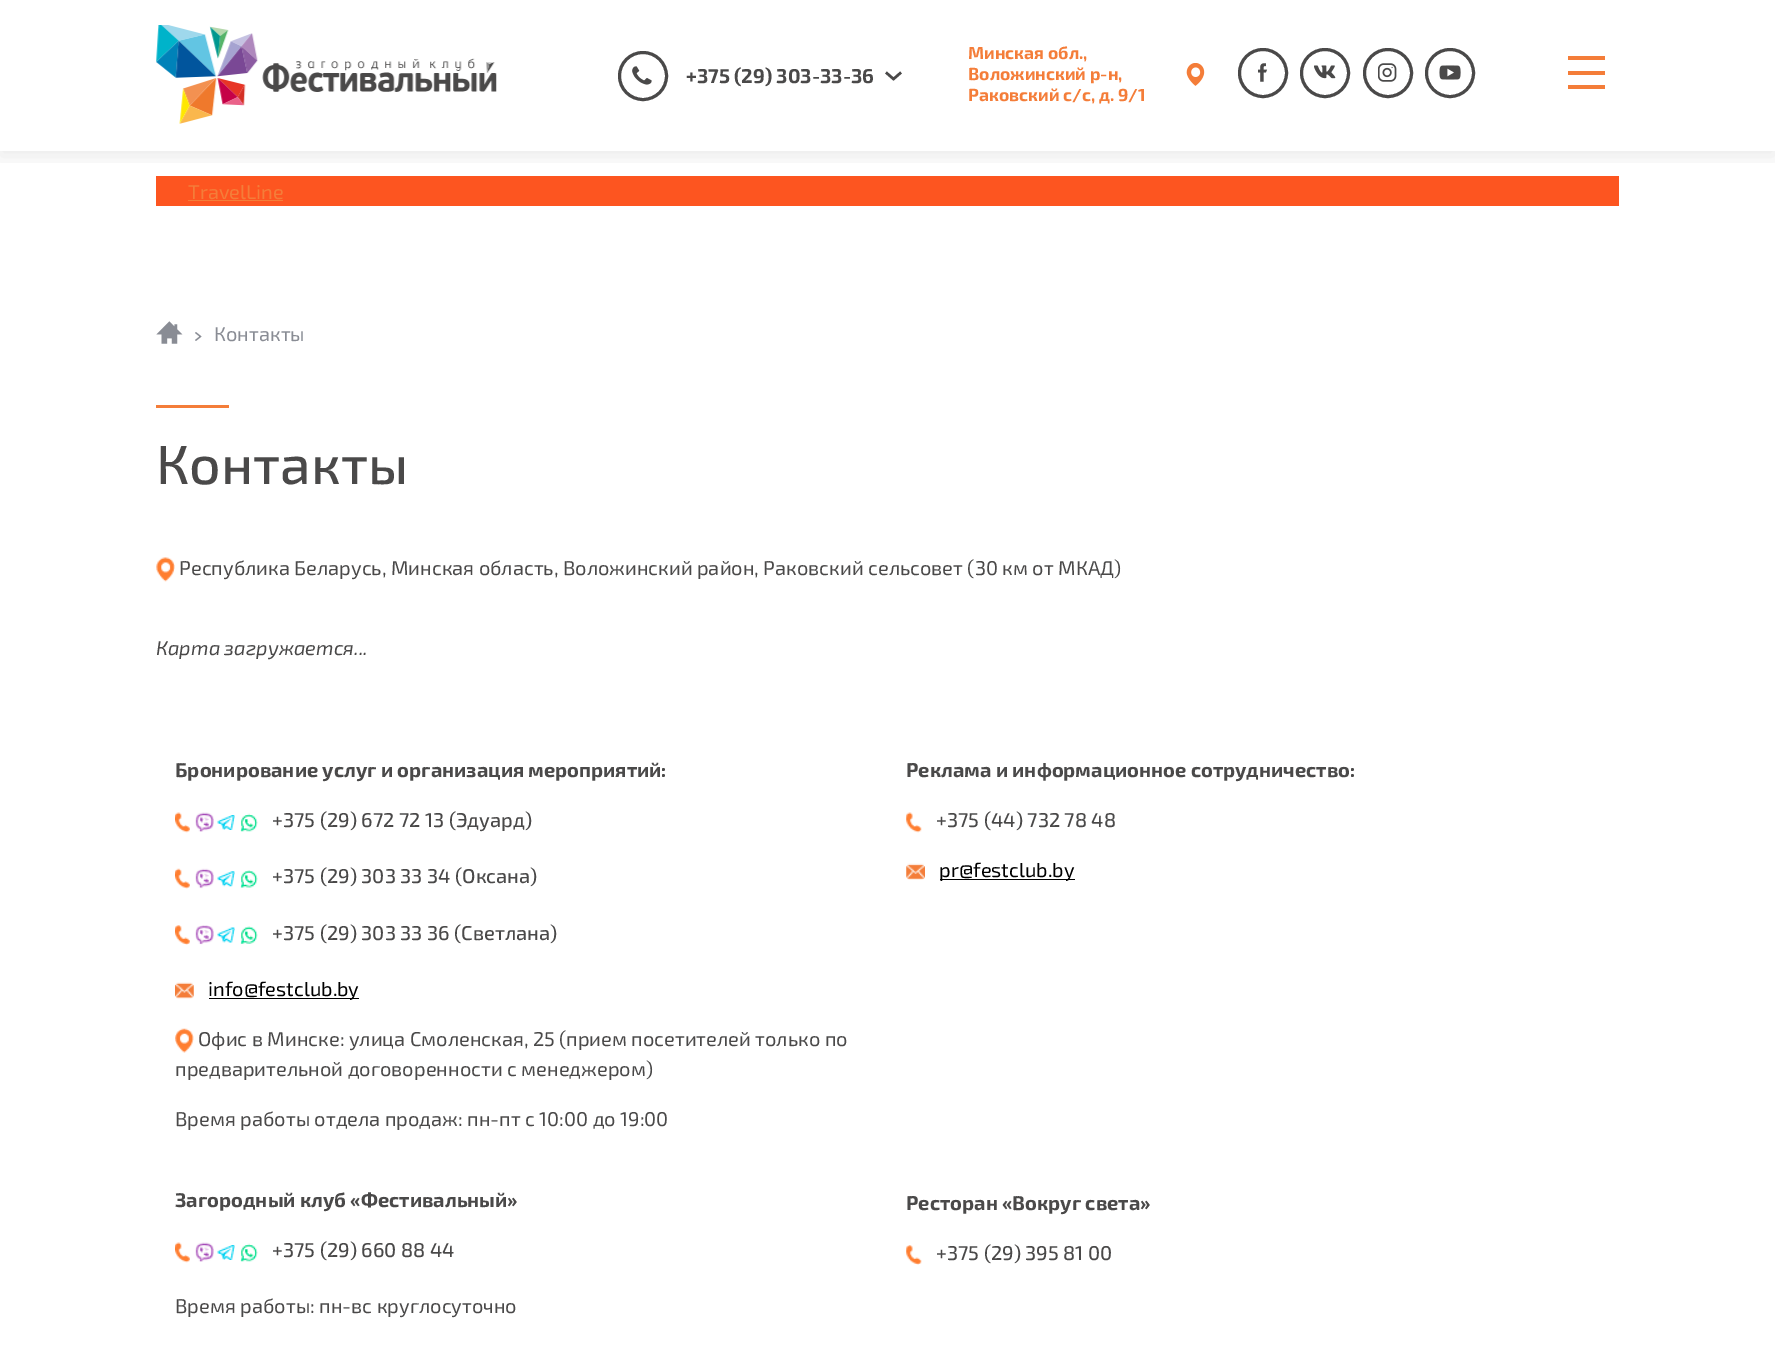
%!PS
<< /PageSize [1775 1361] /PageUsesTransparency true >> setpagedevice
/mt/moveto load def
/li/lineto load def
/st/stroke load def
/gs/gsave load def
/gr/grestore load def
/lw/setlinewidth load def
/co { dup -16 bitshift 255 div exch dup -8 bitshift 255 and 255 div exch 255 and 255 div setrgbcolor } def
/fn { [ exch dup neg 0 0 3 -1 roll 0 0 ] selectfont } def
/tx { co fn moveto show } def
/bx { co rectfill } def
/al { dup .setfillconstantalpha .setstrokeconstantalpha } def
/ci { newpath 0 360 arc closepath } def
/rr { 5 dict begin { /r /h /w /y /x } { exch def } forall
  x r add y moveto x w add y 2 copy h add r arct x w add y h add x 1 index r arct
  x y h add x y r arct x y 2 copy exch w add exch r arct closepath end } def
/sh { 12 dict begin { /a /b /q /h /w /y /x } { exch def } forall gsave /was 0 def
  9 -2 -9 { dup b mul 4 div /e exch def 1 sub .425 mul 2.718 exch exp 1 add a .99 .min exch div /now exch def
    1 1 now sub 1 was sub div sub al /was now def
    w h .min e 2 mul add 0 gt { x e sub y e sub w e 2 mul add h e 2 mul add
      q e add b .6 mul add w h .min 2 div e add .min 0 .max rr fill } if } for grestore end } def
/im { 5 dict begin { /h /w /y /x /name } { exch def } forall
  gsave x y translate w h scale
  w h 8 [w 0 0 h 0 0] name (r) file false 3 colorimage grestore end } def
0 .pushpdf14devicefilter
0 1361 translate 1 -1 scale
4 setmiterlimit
0 0 1775 1361 16#FFFFFF bx
156 176 1463 30 16#FD5520 bx
gs
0 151 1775 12 rectclip
16#000000 co
0 5 1775 151 0 10 .08 sh
gr
(media/1.raw) 156 25 341 99 im
16#4A4949 co
3 lw
643 76 23.5 ci st
(media/2.raw) 632 66 20 19 im
2.5 lw
901 72.5 mt 893.5 79 li 886 72.5 li st
(media/3.raw) 1186 63 19 23 im
3 lw
1263 73 23.5 ci st
(media/4.raw) 1258 63 10 19 im
1325 73 23.5 ci st
(media/5.raw) 1314 65 22 14 im
1388 73 23.5 ci st
(media/6.raw) 1378 63 19 19 im
1450 73 23.5 ci st
(media/7.raw) 1439 65 22 15 im
1568 56 37 4 16#F47D39 bx
1568 71 37 4 16#F47D39 bx
1568 85 37 4 16#F47D39 bx
188 200 95 1 16#F47D39 bx
(media/8.raw) 156 321 27 23 im
16#898C94 co
1.2 lw
195.5 332.5 mt 200.5 336.5 li 195.5 340.5 li st
156 405 73 3 16#F47D39 bx
(media/9.raw) 156 557 19 25 im
(media/10.raw) 175 812 15 21 im
(media/11.raw) 195 812 19 20 im
(media/12.raw) 217 815 18 15 im
(media/13.raw) 240 813 18 19 im
(media/14.raw) 175 868 15 21 im
(media/15.raw) 195 868 19 21 im
(media/16.raw) 217 871 18 16 im
(media/17.raw) 240 870 18 18 im
(media/18.raw) 175 925 15 20 im
(media/19.raw) 195 925 19 20 im
(media/20.raw) 217 927 18 16 im
(media/21.raw) 240 926 18 18 im
(media/22.raw) 175 982 19 17 im
209 998 150 1 16#000000 bx
(media/23.raw) 175 1028 19 25 im
(media/24.raw) 906 812 16 21 im
(media/25.raw) 906 863 19 17 im
940 879 135 1 16#000000 bx
(media/10.raw) 175 1242 15 21 im
(media/11.raw) 195 1242 19 20 im
(media/12.raw) 217 1245 18 15 im
(media/13.raw) 240 1243 18 19 im
(media/26.raw) 906 1245 16 20 im
(+375 \(29\) 303-33-36) 686 83 /Exo2-Bold 20 16#4A4949 tx
(Минская обл.,) 968 59 /Exo2-Bold 17.5 16#F47D39 tx
(Воложинский р-н,) 968 80 /Exo2-Bold 17.5 16#F47D39 tx
(Раковский с/с, д. 9/1) 968 101 /Exo2-Bold 17.5 16#F47D39 tx
(TravelLine) 188 199 /Exo2-Regular 20 16#F47D39 tx
(Контакты) 214 341 /Exo2-Regular 20 16#898C94 tx
(Контакты) 156 484 /Exo2-Medium 55 16#4A4949 tx
(Республика Беларусь, Минская область, Воложинский район, Раковский сельсовет \(30 км от МКАД\)) 179 575 /Exo2-Regular 20 16#4A4949 tx
(Карта загружается...) 156 655 /Exo2-Italic 20 16#4A4949 tx
(Бронирование услуг и организация мероприятий:) 175 777 /Exo2-Bold 20 16#4A4949 tx
(+375 \(29\) 672 72 13 \(Эдуард\)) 272 827 /Exo2-Medium 20 16#4A4949 tx
(+375 \(29\) 303 33 34 \(Оксана\)) 272 883 /Exo2-Medium 20 16#4A4949 tx
(+375 \(29\) 303 33 36 \(Светлана\)) 272 940 /Exo2-Medium 20 16#4A4949 tx
(info@festclub.by) 208 996 /Exo2-Regular 20 16#000000 tx
(Офис в Минске: улица Смоленская, 25 \(прием посетителей только по) 198 1046 /Exo2-Regular 20 16#4A4949 tx
(предварительной договоренности с менеджером\)) 175 1076 /Exo2-Regular 20 16#4A4949 tx
(Время работы отдела продаж: пн-пт с 10:00 до 19:00) 175 1126 /Exo2-Regular 20 16#4A4949 tx
(Реклама и информационное сотрудничество:) 906 777 /Exo2-Bold 20 16#4A4949 tx
(+375 \(44\) 732 78 48) 936 827 /Exo2-Medium 20 16#4A4949 tx
(pr@festclub.by) 939 877 /Exo2-Regular 20 16#000000 tx
(Загородный клуб «Фестивальный») 175 1207 /Exo2-Bold 20 16#4A4949 tx
(+375 \(29\) 660 88 44) 272 1257 /Exo2-Medium 20 16#4A4949 tx
(Время работы: пн-вс круглосуточно) 175 1313 /Exo2-Regular 20 16#4A4949 tx
(Ресторан «Вокруг света») 906 1210 /Exo2-Bold 20 16#4A4949 tx
(+375 \(29\) 395 81 00) 936 1260 /Exo2-Medium 20 16#4A4949 tx
.poppdf14devicefilter showpage
